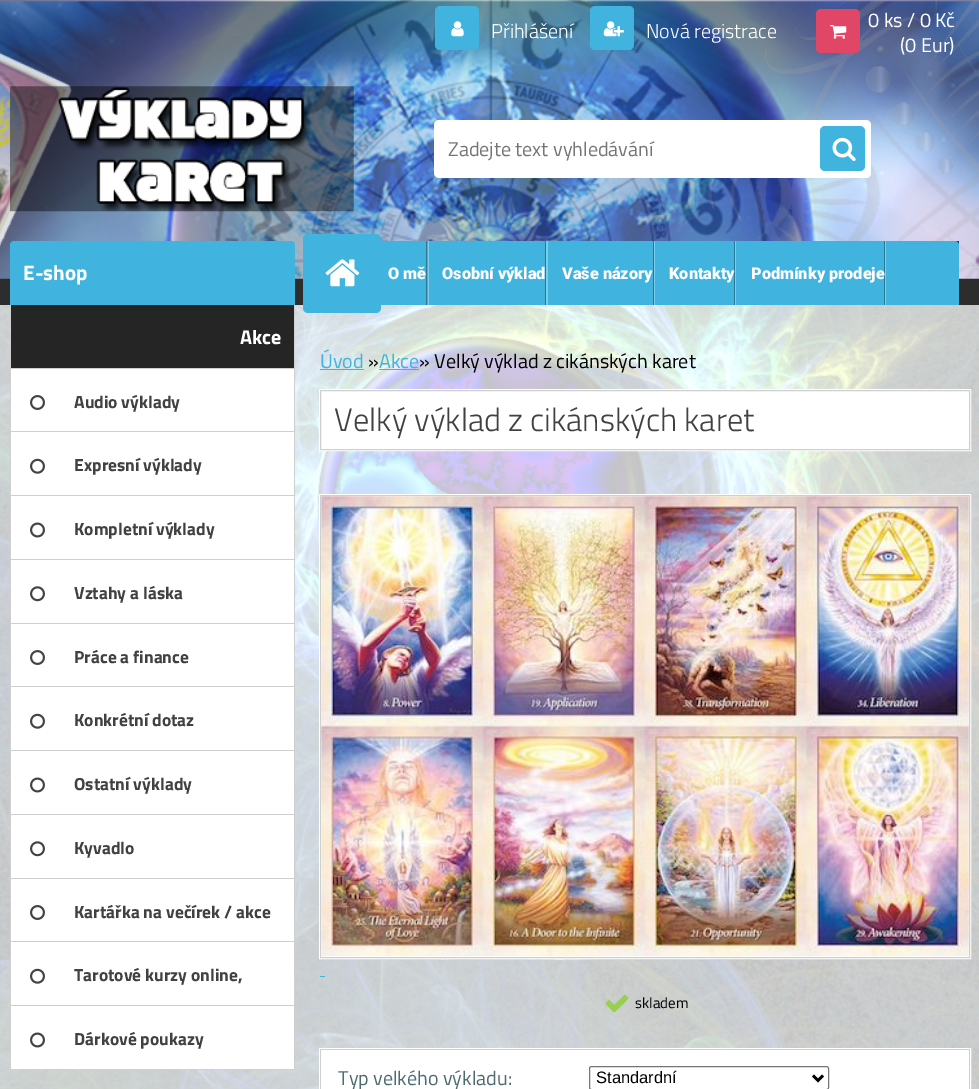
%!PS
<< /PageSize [979 1089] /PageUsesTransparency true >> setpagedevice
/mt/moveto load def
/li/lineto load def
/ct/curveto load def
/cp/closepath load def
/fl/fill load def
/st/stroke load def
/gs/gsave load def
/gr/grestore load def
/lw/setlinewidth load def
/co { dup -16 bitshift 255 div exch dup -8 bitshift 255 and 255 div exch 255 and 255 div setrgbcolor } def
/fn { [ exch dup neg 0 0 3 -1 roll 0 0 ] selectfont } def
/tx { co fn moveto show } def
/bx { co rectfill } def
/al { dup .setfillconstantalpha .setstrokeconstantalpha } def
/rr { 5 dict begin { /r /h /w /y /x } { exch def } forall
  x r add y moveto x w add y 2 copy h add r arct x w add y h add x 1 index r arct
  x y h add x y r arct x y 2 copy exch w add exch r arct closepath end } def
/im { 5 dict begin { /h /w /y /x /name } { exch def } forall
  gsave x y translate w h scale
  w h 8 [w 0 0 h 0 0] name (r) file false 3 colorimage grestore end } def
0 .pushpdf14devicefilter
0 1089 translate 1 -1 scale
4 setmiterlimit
0 0 979 1089 16#FFFFFF bx
(media/1.raw) 0 305 979 784 im
0 0 979 305 16#2D2D2D bx
(media/12.raw) 0 0 979 279 im
16#40B3DF co
435 6 44 44 5 rr fl
(media/2.raw) 451 21 13 16 im
590 6 44 44 5 rr fl
(media/3.raw) 603 21 21 16 im
16#E24666 co
816 9 44 44 5 rr fl
(media/4.raw) 830 25 17 14 im
16#40B3DF co
14 241 mt 291 241 li 293 241 295 243 295 245 ct 295 305 li 10 305 li 10 245 li 10 243 12 241 14 241 ct cp fl
11 305 283 63 16#252525 bx
294 305 1 765 16#CFCFCF bx
10 368 285 1 16#CFCFCF bx
10 305 1 64 16#CFCFCF bx
11 369 283 126 16#FFFFFF bx
10 431 285 1 16#CFCFCF bx
10 369 1 64 16#CFCFCF bx
(media/5.raw) 30 395 15 15 im
10 495 285 1 16#CFCFCF bx
10 433 1 63 16#CFCFCF bx
(media/6.raw) 30 458 15 16 im
11 496 283 63 16#FFFFFF bx
10 559 285 1 16#CFCFCF bx
10 496 1 64 16#CFCFCF bx
(media/7.raw) 30 522 15 16 im
11 560 283 63 16#FFFFFF bx
10 623 285 1 16#CFCFCF bx
10 560 1 64 16#CFCFCF bx
(media/8.raw) 30 586 15 16 im
11 624 283 126 16#FFFFFF bx
10 686 285 1 16#CFCFCF bx
10 624 1 64 16#CFCFCF bx
(media/5.raw) 30 650 15 15 im
10 750 285 1 16#CFCFCF bx
10 688 1 63 16#CFCFCF bx
(media/6.raw) 30 713 15 16 im
11 751 283 63 16#FFFFFF bx
10 814 285 1 16#CFCFCF bx
10 751 1 64 16#CFCFCF bx
(media/7.raw) 30 777 15 16 im
11 815 283 63 16#FFFFFF bx
10 878 285 1 16#CFCFCF bx
10 815 1 64 16#CFCFCF bx
(media/8.raw) 30 841 15 16 im
11 879 283 126 16#FFFFFF bx
10 941 285 1 16#CFCFCF bx
10 879 1 64 16#CFCFCF bx
(media/5.raw) 30 905 15 15 im
10 1005 285 1 16#CFCFCF bx
10 943 1 63 16#CFCFCF bx
(media/6.raw) 30 968 15 16 im
11 1006 283 63 16#FFFFFF bx
10 1069 285 1 16#CFCFCF bx
10 1006 1 64 16#CFCFCF bx
(media/7.raw) 30 1032 15 16 im
320 369 44 1 16#40B3DF bx
379 369 40 1 16#40B3DF bx
16#FFFFFF co
319.5 389.5 651 61 rectstroke
320.5 390.5 mt 969.5 390.5 li 969.5 449.5 li 320.5 449.5 li cp gs fl gr
16#CFCFCF co
st
16#FFFFFF co
319.5 494.5 651 464 rectstroke
320.5 495.5 mt 969.5 495.5 li 969.5 957.5 li 320.5 957.5 li cp gs fl gr
16#CFCFCF co
st
(media/9.raw) 321 496 648 461 im
320 976 5 1 16#40B3DF bx
(media/10.raw) 605 994 24 19 im
16#FFFFFF co
319.5 1048.5 651 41 rectstroke
321 1050 648 39 16#FFFFFF bx
320 1049 650 1 16#CFCFCF bx
969 1049 1 40 16#CFCFCF bx
320 1049 1 40 16#CFCFCF bx
16#767676 co
589.5 1066.5 239 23 2 rr st
16#000000 co
2.5 lw
813 1075.5 mt 818 1080.5 li 823 1075.5 li st
0.9 al
955 241 4 4 16#05175C bx
1 al
16#40B3DF co
309 241 mt 955 241 li 957 241 959 243 959 245 ct 959 305 li 305 305 li 305 245 li 305 243 307 241 309 241 ct cp fl
303 234 78 79 5 rr fl
(media/11.raw) 325 259 35 28 im
16#7FCCEA co
374 241 mt 428 241 li 428 305 li 429 305 li 429 241 li cp fl
426 241 1 64 16#2B7895 bx
16#7FCCEA co
429 241 mt 546 241 li 546 305 li 548 305 li 548 241 li cp fl
545 241 1 64 16#2B7895 bx
16#7FCCEA co
548 241 mt 654 241 li 654 305 li 655 305 li 655 241 li cp fl
653 241 1 64 16#2B7895 bx
16#7FCCEA co
655 241 mt 735 241 li 735 305 li 736 305 li 736 241 li cp fl
734 241 1 64 16#2B7895 bx
16#7FCCEA co
736 241 mt 885 241 li 885 305 li 886 305 li 886 241 li cp fl
884 241 1 64 16#2B7895 bx
(media/13.raw) 10 86 344 126 im
16#FFFFFF co
434 120 437 58 5 rr fl
16#40B3DF co
820 126 45 45 5 rr fl
(media/14.raw) 832 137 24 24 im
(Přihlášení) 491 38 /TitilliumWeb-Light 20 16#FFFFFF tx
(Nová registrace) 646 38 /TitilliumWeb-Light 20 16#FFFFFF tx
(0 ks / 0 Kč) 868 27 /TitilliumWeb-Regular 20 16#FFFFFF tx
(\(0 Eur\)) 900 52 /TitilliumWeb-Regular 20 16#FFFFFF tx
(E-shop) 23 280 /TitilliumWeb-Bold 21 16#FFFFFF tx
(Akce) 240 344 /TitilliumWeb-Bold 20 16#FFFFFF tx
(Audio výklady) 74 408 /TitilliumWeb-Bold 17.5 16#414141 tx
(Expresní výklady) 74 471 /TitilliumWeb-Bold 17.5 16#414141 tx
(Kompletní výklady) 74 535 /TitilliumWeb-Bold 17.5 16#414141 tx
(Vztahy a láska) 74 599 /TitilliumWeb-Bold 17.5 16#414141 tx
(Práce a finance) 74 663 /TitilliumWeb-Bold 17.5 16#414141 tx
(Konkrétní dotaz) 74 726 /TitilliumWeb-Bold 17.5 16#414141 tx
(Ostatní výklady) 74 790 /TitilliumWeb-Bold 17.5 16#414141 tx
(Kyvadlo) 74 854 /TitilliumWeb-Bold 17.5 16#414141 tx
(Kartářka na večírek / akce) 74 918 /TitilliumWeb-Bold 17.5 16#414141 tx
(Tarotové kurzy online,) 74 981 /TitilliumWeb-Bold 17.5 16#414141 tx
(Dárkové poukazy) 74 1045 /TitilliumWeb-Bold 17.5 16#414141 tx
(Úvod) 320 368 /TitilliumWeb-Regular 20 16#40B3DF tx
(») 368 368 /TitilliumWeb-Regular 20 16#000000 tx
(Akce) 379 368 /TitilliumWeb-Regular 20 16#40B3DF tx
(» Velký výklad z cikánských karet) 419 368 /TitilliumWeb-Regular 20 16#000000 tx
(Velký výklad z cikánských karet) 334 431 /TitilliumWeb-Light 32.5 16#414141 tx
(skladem) 635 1008 /TitilliumWeb-Regular 15 16#000000 tx
(Typ velkého výkladu:) 338 1085 /TitilliumWeb-Regular 20 16#4F6B72 tx
(Standardní) 596 1083 /LiberationSans-Regular 16.5 16#000000 tx
(O mě) 388 279 /Roboto-Black 16.25 16#FFFFFF tx
(Osobní výklad) 442 279 /Roboto-Black 16.25 16#FFFFFF tx
(Vaše názory) 562 279 /Roboto-Black 16.25 16#FFFFFF tx
(Kontakty) 669 279 /Roboto-Black 16.25 16#FFFFFF tx
(Podmínky prodeje) 751 279 /Roboto-Black 16.25 16#FFFFFF tx
(Zadejte text vyhledávání) 448 156 /TitilliumWeb-Regular 20 16#757575 tx
.poppdf14devicefilter showpage
